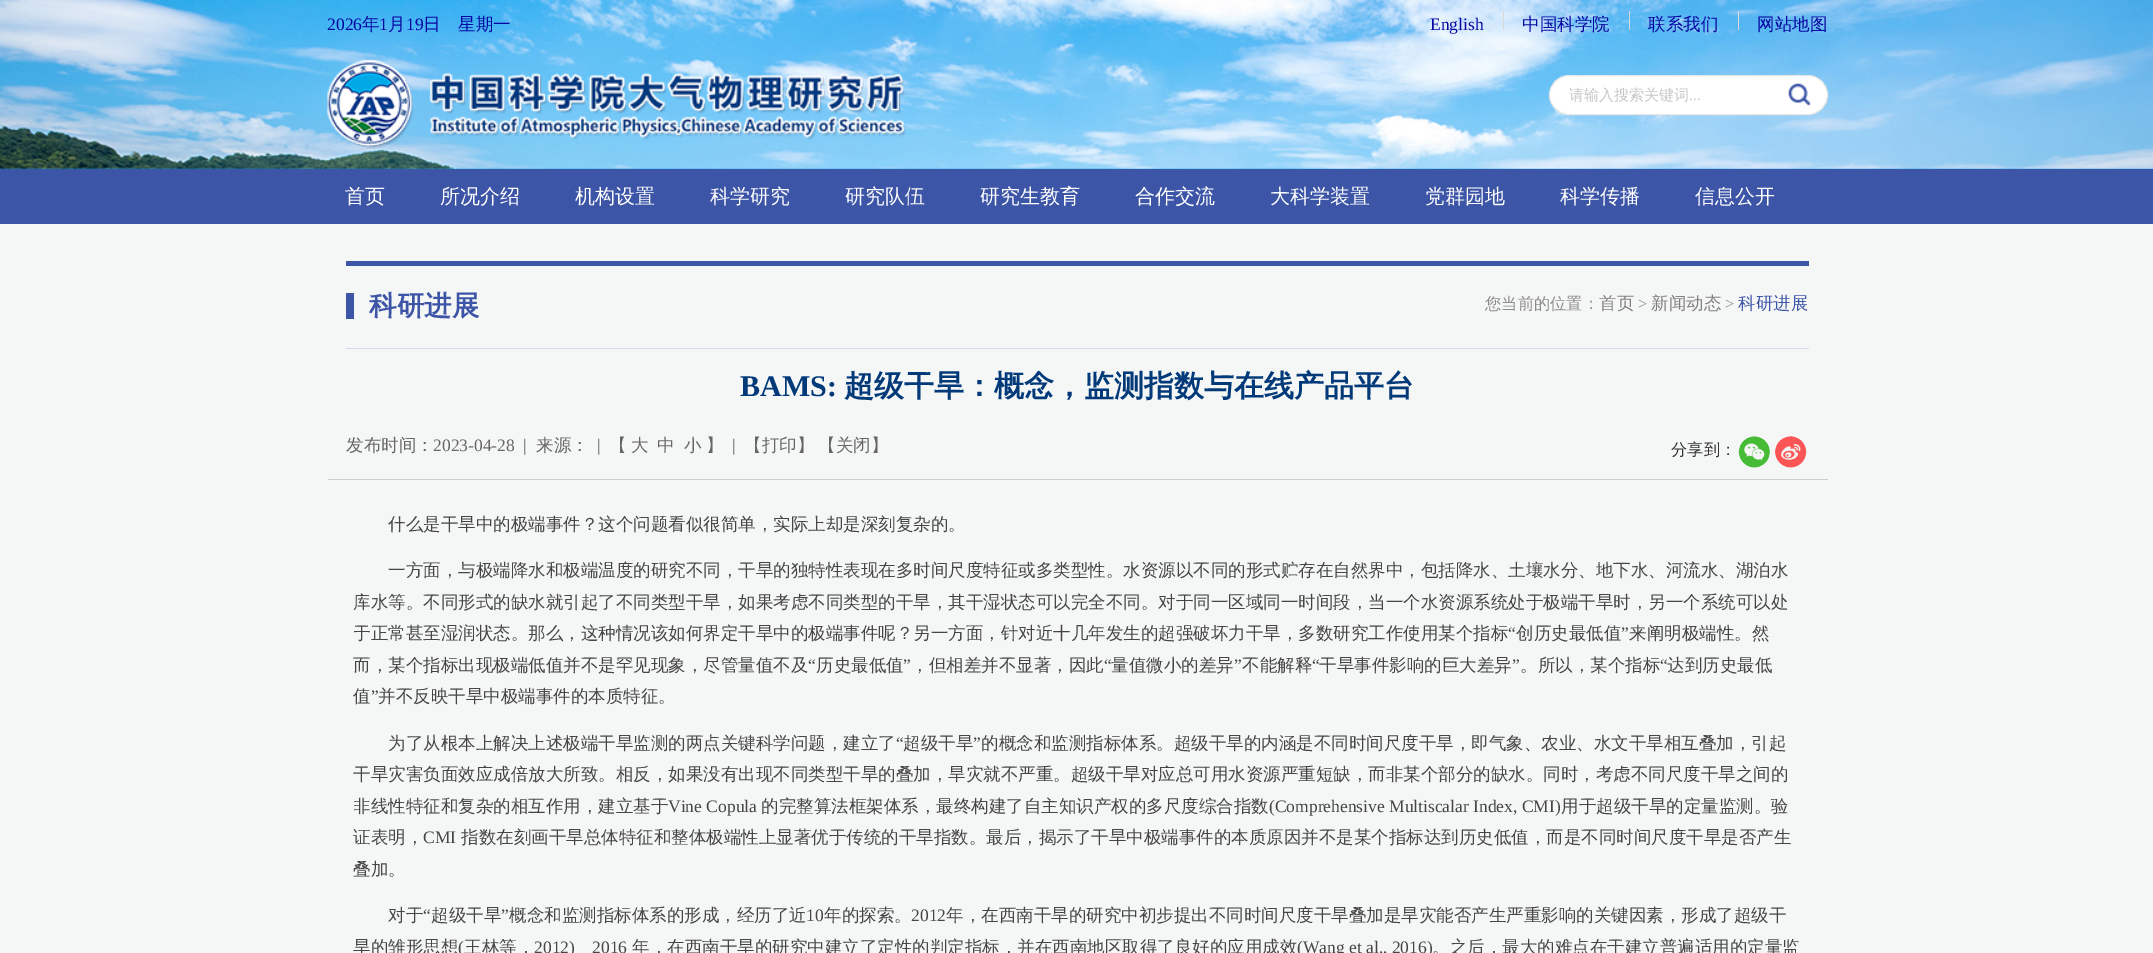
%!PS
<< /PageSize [2153 953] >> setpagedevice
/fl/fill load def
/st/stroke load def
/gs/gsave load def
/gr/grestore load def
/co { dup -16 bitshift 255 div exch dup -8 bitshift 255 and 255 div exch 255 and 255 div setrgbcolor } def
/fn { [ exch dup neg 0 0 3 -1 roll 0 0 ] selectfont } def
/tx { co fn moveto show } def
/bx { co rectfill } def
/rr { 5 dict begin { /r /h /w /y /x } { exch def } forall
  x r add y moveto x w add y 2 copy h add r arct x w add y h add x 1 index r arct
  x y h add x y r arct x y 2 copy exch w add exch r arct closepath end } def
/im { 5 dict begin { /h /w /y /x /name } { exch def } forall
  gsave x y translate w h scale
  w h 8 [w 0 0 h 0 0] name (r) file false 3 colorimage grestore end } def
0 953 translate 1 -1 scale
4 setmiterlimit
0 0 2153 953 16#F5F7F6 bx
(media/1.raw) 0 0 2153 169 im
1503 11 1 19 16#D9D9D9 bx
1629 11 1 19 16#D9D9D9 bx
1738 11 1 19 16#D9D9D9 bx
(media/2.raw) 327 59 579 90 im
16#FFFFFF co
1549.5 75.5 278 39 19.5 rr gs fl gr
16#E6E6E6 co
st
(media/3.raw) 1788 83 23 23 im
0 169 2153 55 16#3D55A7 bx
346 261 1463 5 16#3D55A7 bx
346 293 8 26 16#3D55A7 bx
346 348 1463 1 16#D2DCF7 bx
328 479 1500 1 16#CCCCCC bx
(media/4.raw) 1738 436 32 32 im
(media/5.raw) 1775 436 32 32 im
(2026) 327 30 /LiberationSerif-Regular 17.5 16#0806A0 tx
(年) 362 30 /WenQuanYiZenHei-Medium 17.5 16#0806A0 tx
(1) 379 30 /LiberationSerif-Regular 17.5 16#0806A0 tx
(月) 388 30 /WenQuanYiZenHei-Medium 17.5 16#0806A0 tx
(19) 406 30 /LiberationSerif-Regular 17.5 16#0806A0 tx
(日) 423 30 /WenQuanYiZenHei-Medium 17.5 16#0806A0 tx
(星期一) 458 30 /WenQuanYiZenHei-Medium 17.5 16#0806A0 tx
(English) 1430 30 /LiberationSerif-Regular 17.5 16#0806A0 tx
(中国科学院) 1522 30 /WenQuanYiZenHei-Medium 17.5 16#0806A0 tx
(联系我们) 1648 30 /WenQuanYiZenHei-Medium 17.5 16#0806A0 tx
(网站地图) 1757 30 /WenQuanYiZenHei-Medium 17.5 16#0806A0 tx
(请输入搜索关键词) 1569 100 /WenQuanYiZenHei-Medium 15 16#C7C7C7 tx
(...) 1689 100 /LiberationSerif-Regular 15 16#C7C7C7 tx
(首页) 345 203 /WenQuanYiZenHei-Medium 20 16#FFFFFF tx
(所况介绍) 440 203 /WenQuanYiZenHei-Medium 20 16#FFFFFF tx
(机构设置) 575 203 /WenQuanYiZenHei-Medium 20 16#FFFFFF tx
(科学研究) 710 203 /WenQuanYiZenHei-Medium 20 16#FFFFFF tx
(研究队伍) 845 203 /WenQuanYiZenHei-Medium 20 16#FFFFFF tx
(研究生教育) 980 203 /WenQuanYiZenHei-Medium 20 16#FFFFFF tx
(合作交流) 1135 203 /WenQuanYiZenHei-Medium 20 16#FFFFFF tx
(大科学装置) 1270 203 /WenQuanYiZenHei-Medium 20 16#FFFFFF tx
(党群园地) 1425 203 /WenQuanYiZenHei-Medium 20 16#FFFFFF tx
(科学传播) 1560 203 /WenQuanYiZenHei-Medium 20 16#FFFFFF tx
(信息公开) 1695 203 /WenQuanYiZenHei-Medium 20 16#FFFFFF tx
(科研进展) 369 315 /WenQuanYiZenHei-Bold 27.5 16#3D55A7 tx
(您当前的位置：) 1485 309 /WenQuanYiZenHei-Medium 16.25 16#8B8B8B tx
(首页) 1599 309 /WenQuanYiZenHei-Medium 17.5 16#808080 tx
(>) 1638 309 /LiberationSerif-Regular 16.25 16#8B8B8B tx
(新闻动态) 1651 309 /WenQuanYiZenHei-Medium 17.5 16#808080 tx
(>) 1725 309 /LiberationSerif-Regular 16.25 16#8B8B8B tx
(科研进展) 1738 309 /WenQuanYiZenHei-Medium 17.5 16#3D55A7 tx
(BAMS:) 740 396 /LiberationSerif-Bold 30 16#023979 tx
(超级干旱：概念，监测指数与在线产品平台) 844 396 /WenQuanYiZenHei-Bold 30 16#023979 tx
(发布时间：) 346 451 /WenQuanYiZenHei-Medium 17.5 16#666666 tx
(2023-04-28  |) 433 451 /LiberationSerif-Regular 17.5 16#666666 tx
(来源：) 536 451 /WenQuanYiZenHei-Medium 17.5 16#666666 tx
(|) 597 451 /LiberationSerif-Regular 17.5 16#666666 tx
(【) 609 451 /WenQuanYiZenHei-Medium 17.5 16#666666 tx
(大) 631 451 /WenQuanYiZenHei-Medium 17.5 16#666666 tx
(中) 657 451 /WenQuanYiZenHei-Medium 17.5 16#666666 tx
(小) 684 451 /WenQuanYiZenHei-Medium 17.5 16#666666 tx
(】) 706 451 /WenQuanYiZenHei-Medium 17.5 16#666666 tx
(|) 732 451 /LiberationSerif-Regular 17.5 16#666666 tx
(【打印】) 744 451 /WenQuanYiZenHei-Medium 17.5 16#666666 tx
(【关闭】) 818 451 /WenQuanYiZenHei-Medium 17.5 16#666666 tx
(分享到：) 1671 455 /WenQuanYiZenHei-Medium 16.25 16#333333 tx
(什么是干旱中的极端事件？这个问题看似很简单，实际上却是深刻复杂的。) 388 530 /WenQuanYiZenHei-Medium 17.5 16#454545 tx
(一方面，与极端降水和极端温度的研究不同，干旱的独特性表现在多时间尺度特征或多类型性。水资源以不同的形式贮存在自然界中，包括降水、土壤水分、地下水、河流水、湖泊水) 388 576 /WenQuanYiZenHei-Medium 17.5 16#454545 tx
(库水等。不同形式的缺水就引起了不同类型干旱，如果考虑不同类型的干旱，其干湿状态可以完全不同。对于同一区域同一时间段，当一个水资源系统处于极端干旱时，另一个系统可以处) 353 608 /WenQuanYiZenHei-Medium 17.5 16#454545 tx
gs
354 509 1447 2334 rectclip
(于正常甚至湿润状态。那么，这种情况该如何界定干旱中的极端事件呢？另一方面，针对近十几年发生的超强破坏力干旱，多数研究工作使用某个指标) 353 639 /WenQuanYiZenHei-Medium 17.5 16#454545 tx
gr
(“) 1508 639 /LiberationSerif-Regular 17.5 16#454545 tx
(创历史最低值) 1516 639 /WenQuanYiZenHei-Medium 17.5 16#454545 tx
(”) 1621 639 /LiberationSerif-Regular 17.5 16#454545 tx
(来阐明极端性。然) 1629 639 /WenQuanYiZenHei-Medium 17.5 16#454545 tx
(而，某个指标出现极端低值并不是罕见现象，尽管量值不及) 353 671 /WenQuanYiZenHei-Medium 17.5 16#454545 tx
(“) 808 671 /LiberationSerif-Regular 17.5 16#454545 tx
(历史最低值) 816 671 /WenQuanYiZenHei-Medium 17.5 16#454545 tx
(”) 903 671 /LiberationSerif-Regular 17.5 16#454545 tx
(，但相差并不显著，因此) 911 671 /WenQuanYiZenHei-Medium 17.5 16#454545 tx
(“) 1104 671 /LiberationSerif-Regular 17.5 16#454545 tx
(量值微小的差异) 1111 671 /WenQuanYiZenHei-Medium 17.5 16#454545 tx
(”) 1234 671 /LiberationSerif-Regular 17.5 16#454545 tx
(不能解释) 1242 671 /WenQuanYiZenHei-Medium 17.5 16#454545 tx
(“) 1312 671 /LiberationSerif-Regular 17.5 16#454545 tx
(干旱事件影响的巨大差异) 1319 671 /WenQuanYiZenHei-Medium 17.5 16#454545 tx
(”) 1512 671 /LiberationSerif-Regular 17.5 16#454545 tx
(。所以，某个指标) 1520 671 /WenQuanYiZenHei-Medium 17.5 16#454545 tx
(“) 1660 671 /LiberationSerif-Regular 17.5 16#454545 tx
(达到历史最低) 1667 671 /WenQuanYiZenHei-Medium 17.5 16#454545 tx
(值) 353 702 /WenQuanYiZenHei-Medium 17.5 16#454545 tx
(”) 371 702 /LiberationSerif-Regular 17.5 16#454545 tx
(并不反映干旱中极端事件的本质特征。) 378 702 /WenQuanYiZenHei-Medium 17.5 16#454545 tx
(为了从根本上解决上述极端干旱监测的两点关键科学问题，建立了) 388 749 /WenQuanYiZenHei-Medium 17.5 16#454545 tx
(“) 896 749 /LiberationSerif-Regular 17.5 16#454545 tx
(超级干旱) 903 749 /WenQuanYiZenHei-Medium 17.5 16#454545 tx
(”) 973 749 /LiberationSerif-Regular 17.5 16#454545 tx
(的概念和监测指标体系。超级干旱的内涵是不同时间尺度干旱，即气象、农业、水文干旱相互叠加，引起) 981 749 /WenQuanYiZenHei-Medium 17.5 16#454545 tx
(干旱灾害负面效应成倍放大所致。相反，如果没有出现不同类型干旱的叠加，旱灾就不严重。超级干旱对应总可用水资源严重短缺，而非某个部分的缺水。同时，考虑不同尺度干旱之间的) 353 780 /WenQuanYiZenHei-Medium 17.5 16#454545 tx
gs
354 509 1447 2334 rectclip
(非线性特征和复杂的相互作用，建立基于) 353 812 /WenQuanYiZenHei-Medium 17.5 16#454545 tx
gr
(Vine Copula) 668 812 /LiberationSerif-Regular 17.5 16#454545 tx
(的完整算法框架体系，最终构建了自主知识产权的多尺度综合指数) 761 812 /WenQuanYiZenHei-Medium 17.5 16#454545 tx
(\(Comprehensive Multiscalar Index, CMI\)) 1269 812 /LiberationSerif-Regular 17.5 16#454545 tx
(用于超级干旱的定量监测。验) 1561 812 /WenQuanYiZenHei-Medium 17.5 16#454545 tx
(证表明，) 353 843 /WenQuanYiZenHei-Medium 17.5 16#454545 tx
(CMI) 423 843 /LiberationSerif-Regular 17.5 16#454545 tx
(指数在刻画干旱总体特征和整体极端性上显著优于传统的干旱指数。最后，揭示了干旱中极端事件的本质原因并不是某个指标达到历史低值，而是不同时间尺度干旱是否产生) 461 843 /WenQuanYiZenHei-Medium 17.5 16#454545 tx
(叠加。) 353 875 /WenQuanYiZenHei-Medium 17.5 16#454545 tx
(对于) 388 921 /WenQuanYiZenHei-Medium 17.5 16#454545 tx
(“) 423 921 /LiberationSerif-Regular 17.5 16#454545 tx
(超级干旱) 431 921 /WenQuanYiZenHei-Medium 17.5 16#454545 tx
(”) 501 921 /LiberationSerif-Regular 17.5 16#454545 tx
(概念和监测指标体系的形成，经历了近) 509 921 /WenQuanYiZenHei-Medium 17.5 16#454545 tx
(10) 806 921 /LiberationSerif-Regular 17.5 16#454545 tx
(年的探索。) 824 921 /WenQuanYiZenHei-Medium 17.5 16#454545 tx
(2012) 911 921 /LiberationSerif-Regular 17.5 16#454545 tx
(年，在西南干旱的研究中初步提出不同时间尺度干旱叠加是旱灾能否产生严重影响的关键因素，形成了超级干) 946 921 /WenQuanYiZenHei-Medium 17.5 16#454545 tx
(旱的雏形思想) 353 953 /WenQuanYiZenHei-Medium 17.5 16#454545 tx
(\() 458 953 /LiberationSerif-Regular 17.5 16#454545 tx
(王林等，) 464 953 /WenQuanYiZenHei-Medium 17.5 16#454545 tx
(2012\)) 534 953 /LiberationSerif-Regular 17.5 16#454545 tx
(2016) 592 953 /LiberationSerif-Regular 17.5 16#454545 tx
(年，在西南干旱的研究中建立了定性的判定指标，并在西南地区取得了良好的应用成效) 632 953 /WenQuanYiZenHei-Medium 17.5 16#454545 tx
(\(Wang et al., 2016\)) 1297 953 /LiberationSerif-Regular 17.5 16#454545 tx
(。之后，最大的难点在于建立普遍适用的定量监) 1432 953 /WenQuanYiZenHei-Medium 17.5 16#454545 tx
showpage
